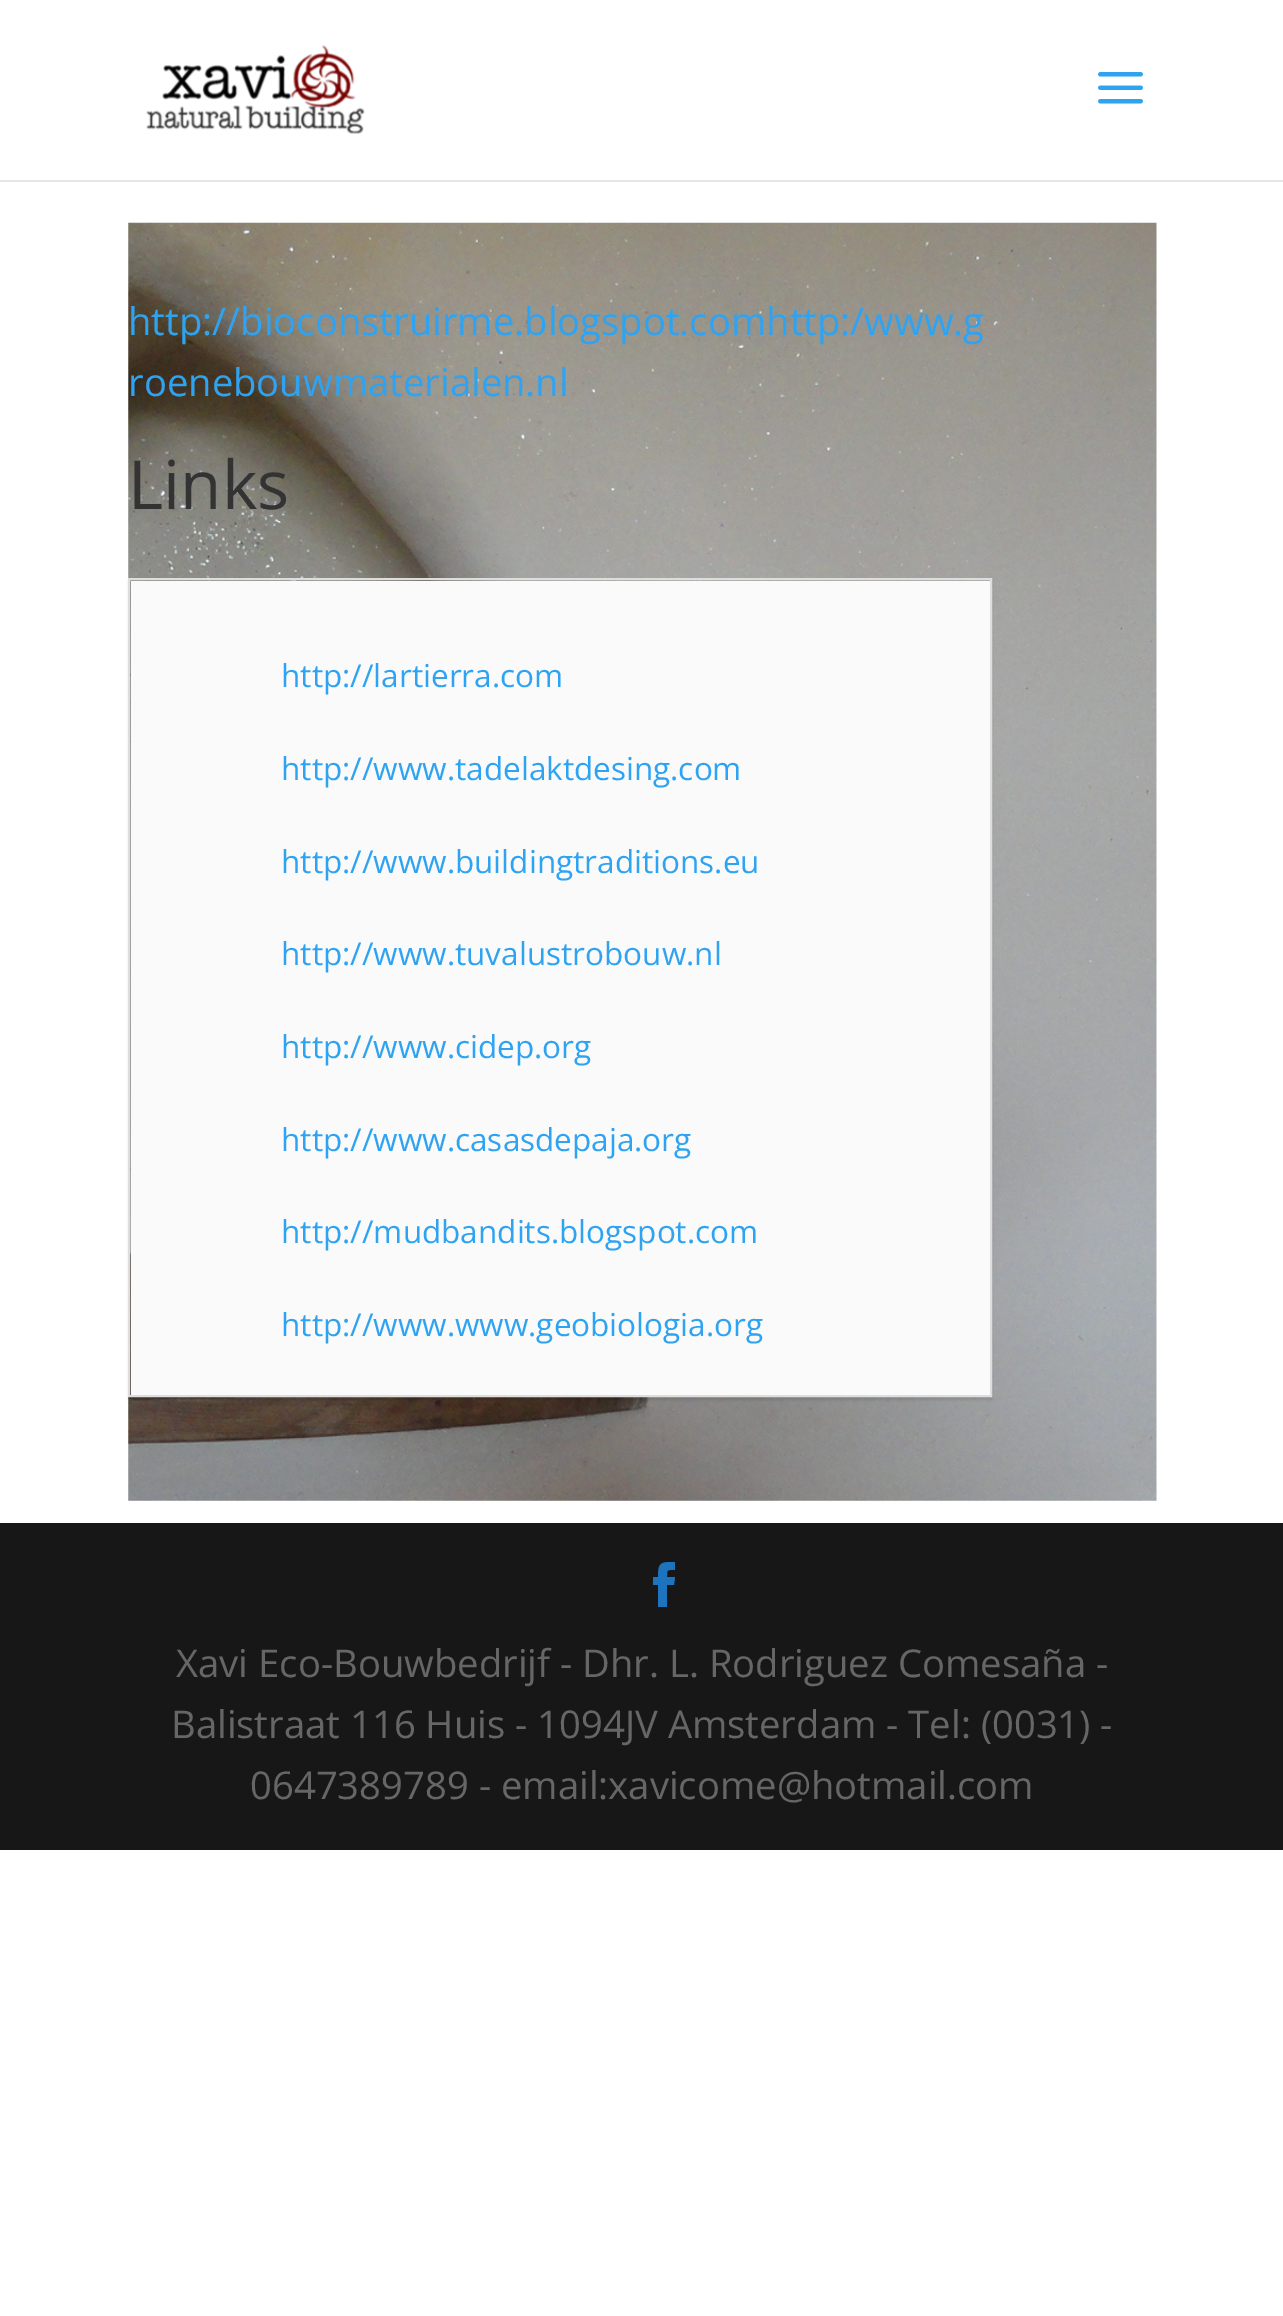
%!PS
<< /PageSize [1283 2316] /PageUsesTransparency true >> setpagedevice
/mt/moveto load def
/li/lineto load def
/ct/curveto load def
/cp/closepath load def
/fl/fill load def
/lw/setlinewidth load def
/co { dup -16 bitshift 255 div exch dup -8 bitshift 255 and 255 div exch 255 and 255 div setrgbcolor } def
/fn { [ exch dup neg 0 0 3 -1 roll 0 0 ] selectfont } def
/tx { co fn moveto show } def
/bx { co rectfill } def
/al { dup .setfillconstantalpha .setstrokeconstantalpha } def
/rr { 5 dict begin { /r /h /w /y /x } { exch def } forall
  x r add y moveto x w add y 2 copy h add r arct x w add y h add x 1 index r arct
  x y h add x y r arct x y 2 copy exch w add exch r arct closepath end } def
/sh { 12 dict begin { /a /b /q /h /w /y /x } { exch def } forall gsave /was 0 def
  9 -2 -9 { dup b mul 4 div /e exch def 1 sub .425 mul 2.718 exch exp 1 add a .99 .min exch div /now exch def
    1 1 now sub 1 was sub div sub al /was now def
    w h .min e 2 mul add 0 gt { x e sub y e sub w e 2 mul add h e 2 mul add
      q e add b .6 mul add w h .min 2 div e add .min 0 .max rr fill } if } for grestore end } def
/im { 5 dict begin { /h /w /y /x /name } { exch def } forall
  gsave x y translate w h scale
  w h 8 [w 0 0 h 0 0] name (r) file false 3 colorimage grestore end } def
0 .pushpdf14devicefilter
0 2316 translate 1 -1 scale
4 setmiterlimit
0 0 1283 2316 16#FFFFFF bx
16#E6E6E6 co
0 180 mt 0 182 li 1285 182 li 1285 2 li 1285 180 li cp fl
(media/1.raw) 146 45 219 89 im
(media/2.raw) 1098 72 45 32 im
(media/3.raw) 128 222 1029 1279 im
16#000000 co
128 581 864 819 0 1 .1 sh
16#DDDDDD co
2 lw
129 579 862 817 rectstroke
131 581 859 814 16#FAFAFA bx
0 1523 1283 327 16#171717 bx
16#1E73BE co
658 1607 mt 667 1607 li 667 1585 li 674 1585 li 675 1577 li 667 1577 li 667 1569 667 1570 675 1570 ct 675 1562 li 661 1562 658 1562 658 1577 ct 653 1577 li 653 1585 li 658 1585 li cp fl
(http://bioconstruirme.blogspot.comhttp:/www.g) 128 335 /OpenSans-Regular 38.25 16#2EA3F2 tx
(roenebouwmaterialen.nl) 128 396 /OpenSans-Regular 38.25 16#2EA3F2 tx
(Links) 128 509 /OpenSans-Regular 67.5 16#333333 tx
(http://lartierra.com) 281 687 /OpenSans-Regular 31.5 16#2EA3F2 tx
(http://www.tadelaktdesing.com) 281 780 /OpenSans-Regular 31.5 16#2EA3F2 tx
(http://www.buildingtraditions.eu) 281 873 /OpenSans-Regular 31.5 16#2EA3F2 tx
(http://www.tuvalustrobouw.nl) 281 965 /OpenSans-Regular 31.5 16#2EA3F2 tx
(http://www.cidep.org) 281 1058 /OpenSans-Regular 31.5 16#2EA3F2 tx
(http://www.casasdepaja.org) 281 1151 /OpenSans-Regular 31.5 16#2EA3F2 tx
(http://mudbandits.blogspot.com) 281 1243 /OpenSans-Regular 31.5 16#2EA3F2 tx
(http://www.www.geobiologia.org) 281 1336 /OpenSans-Regular 31.5 16#2EA3F2 tx
(Xavi Eco-Bouwbedrijf - Dhr. L. Rodriguez Comesaña -) 176 1677 /OpenSans-Regular 38.25 16#666666 tx
(Balistraat 116 Huis - 1094JV Amsterdam - Tel: \(0031\) -) 171 1738 /OpenSans-Regular 38.25 16#666666 tx
(0647389789 - email:xavicome@hotmail.com) 250 1799 /OpenSans-Regular 38.25 16#666666 tx
.poppdf14devicefilter showpage
